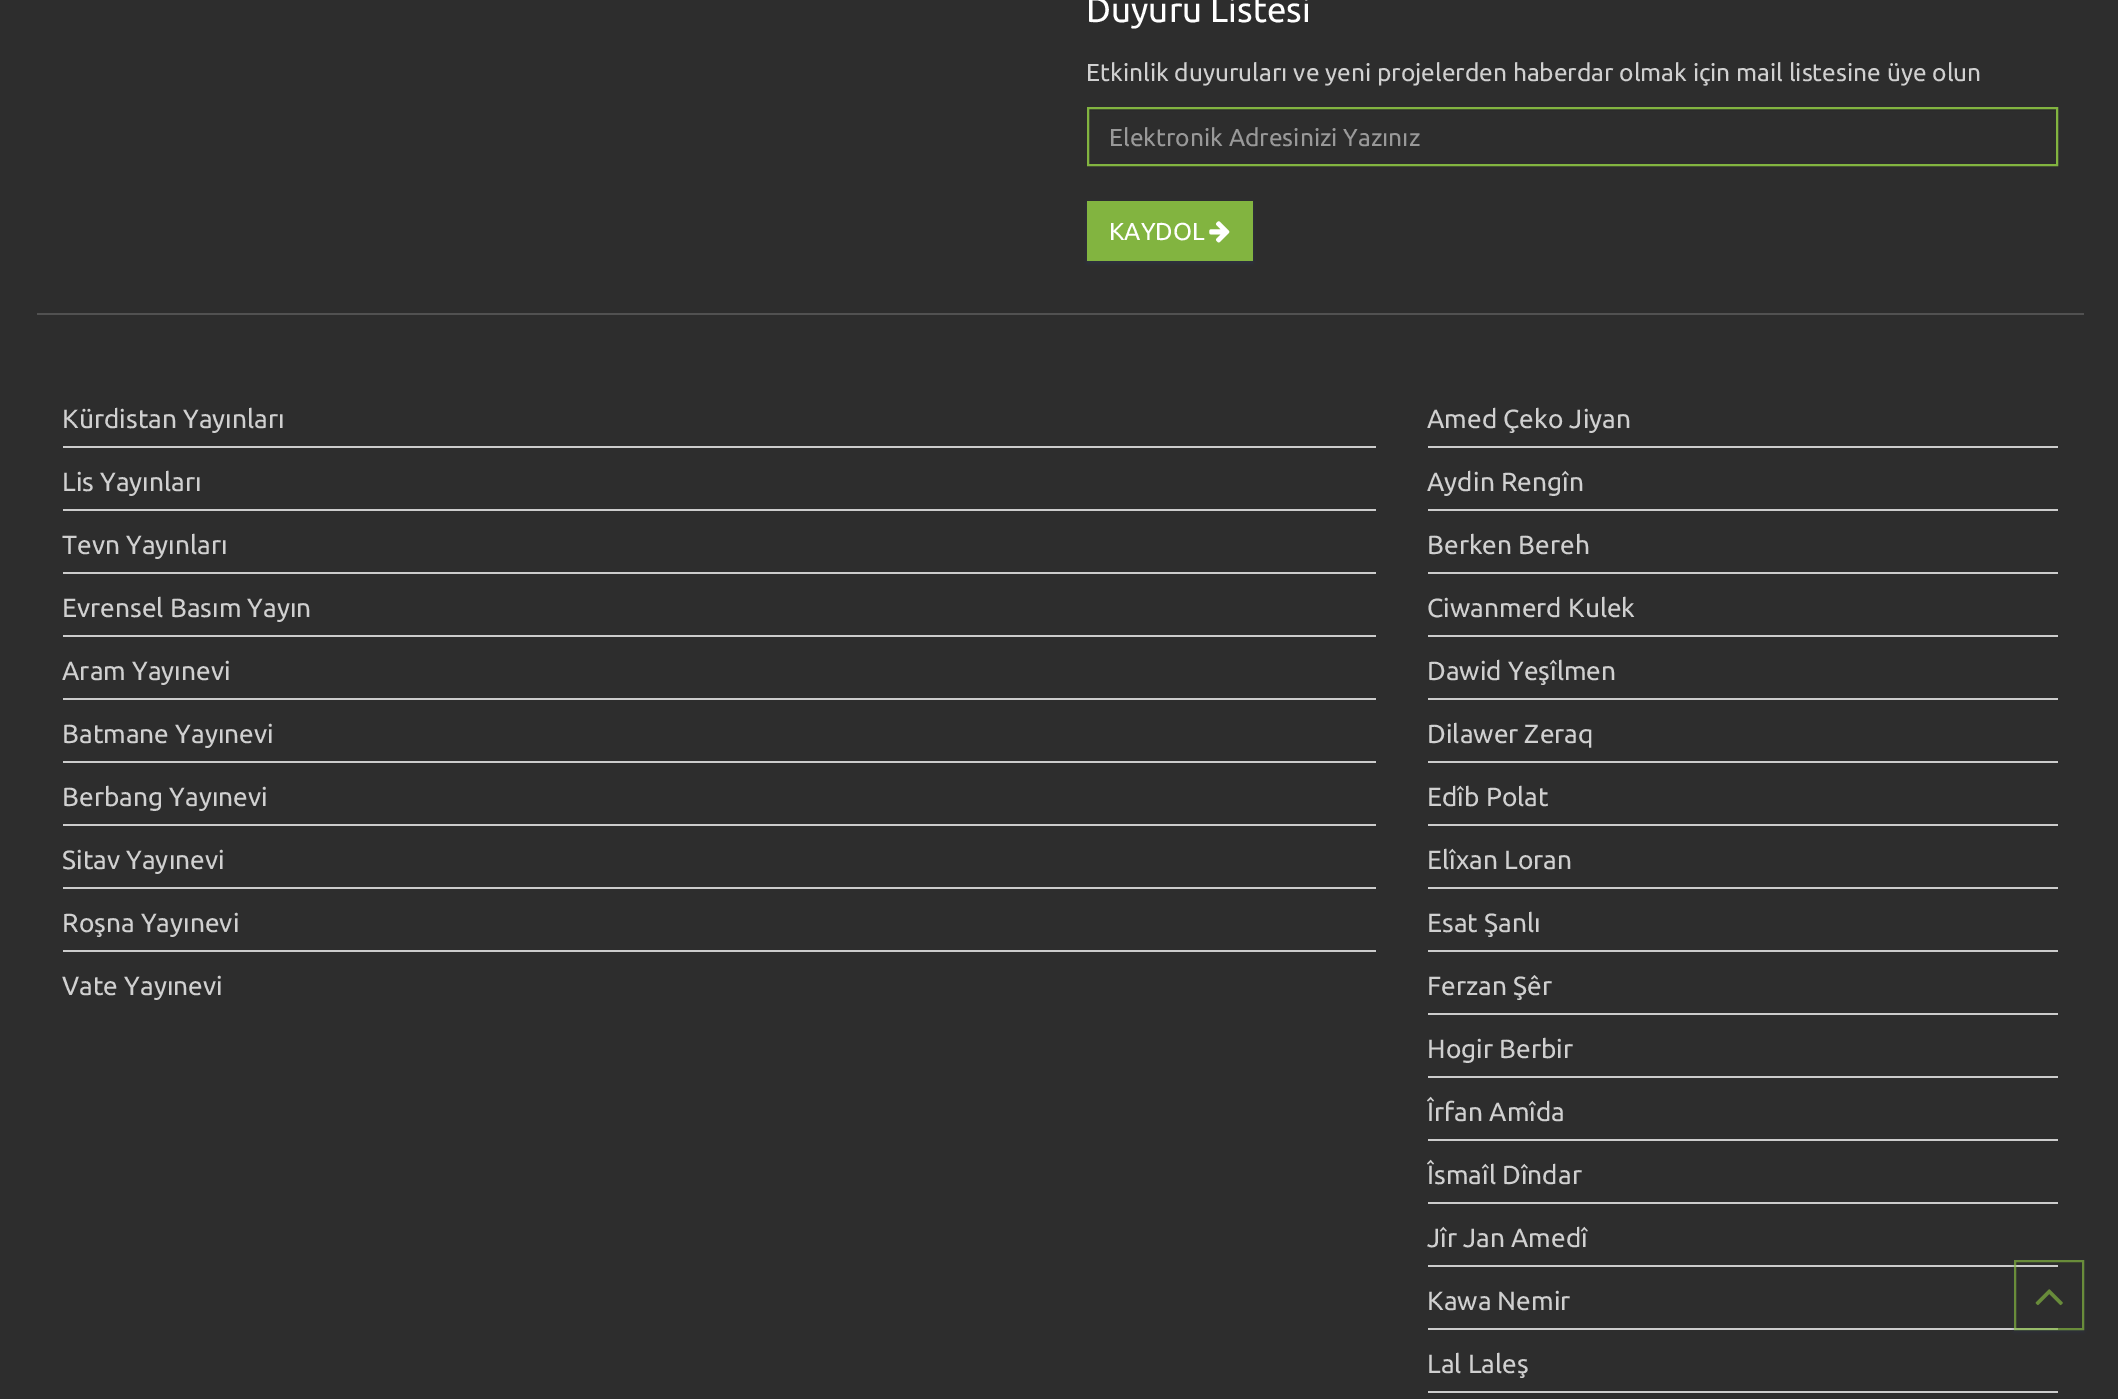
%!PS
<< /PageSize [2118 1399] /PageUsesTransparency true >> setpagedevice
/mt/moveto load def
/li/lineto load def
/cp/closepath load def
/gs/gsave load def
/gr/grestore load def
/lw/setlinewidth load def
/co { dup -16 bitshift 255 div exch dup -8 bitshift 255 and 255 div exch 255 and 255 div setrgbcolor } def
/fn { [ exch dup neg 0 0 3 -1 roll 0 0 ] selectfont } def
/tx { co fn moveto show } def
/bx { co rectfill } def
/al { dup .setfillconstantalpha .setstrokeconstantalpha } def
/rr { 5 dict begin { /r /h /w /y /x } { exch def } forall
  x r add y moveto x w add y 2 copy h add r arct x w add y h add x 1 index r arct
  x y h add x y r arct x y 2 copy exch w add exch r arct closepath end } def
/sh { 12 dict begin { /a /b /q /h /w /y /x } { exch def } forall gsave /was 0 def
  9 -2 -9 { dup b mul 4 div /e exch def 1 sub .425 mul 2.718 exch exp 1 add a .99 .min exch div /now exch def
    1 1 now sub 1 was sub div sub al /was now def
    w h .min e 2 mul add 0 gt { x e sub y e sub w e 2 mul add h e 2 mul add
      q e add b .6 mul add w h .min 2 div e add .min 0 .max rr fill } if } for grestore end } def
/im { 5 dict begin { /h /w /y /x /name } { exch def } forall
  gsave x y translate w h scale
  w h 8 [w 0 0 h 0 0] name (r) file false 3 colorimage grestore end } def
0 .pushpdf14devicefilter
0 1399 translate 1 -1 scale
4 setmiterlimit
0 0 2118 1399 16#2D2D2D bx
37 313 2047 2 16#515151 bx
1089 109 967 2 16#2A2A2A bx
16#82B440 co
2 lw
1088 108 969 57 rectstroke
16#2B3B5D co
1087 203 166 60 0 2 .4 sh
1087 201 166 60 16#82B440 bx
(media/1.raw) 1209 221 21 22 im
63 446 1313 2 16#CCCCCC bx
63 509 1313 2 16#CCCCCC bx
63 572 1313 2 16#CCCCCC bx
63 635 1313 2 16#CCCCCC bx
63 698 1313 2 16#CCCCCC bx
63 761 1313 2 16#CCCCCC bx
63 824 1313 2 16#CCCCCC bx
63 887 1313 2 16#CCCCCC bx
63 950 1313 2 16#CCCCCC bx
1428 446 630 2 16#CCCCCC bx
1428 509 630 2 16#CCCCCC bx
1428 572 630 2 16#CCCCCC bx
1428 635 630 2 16#CCCCCC bx
1428 698 630 2 16#CCCCCC bx
1428 761 630 2 16#CCCCCC bx
1428 824 630 2 16#CCCCCC bx
1428 887 630 2 16#CCCCCC bx
1428 950 630 2 16#CCCCCC bx
1428 1013 630 2 16#CCCCCC bx
1428 1076 630 2 16#CCCCCC bx
1428 1139 630 2 16#CCCCCC bx
1428 1202 630 2 16#CCCCCC bx
1428 1265 630 2 16#CCCCCC bx
1428 1328 630 2 16#CCCCCC bx
1428 1391 630 2 16#CCCCCC bx
gs
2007 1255 mt 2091 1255 li 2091 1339 li 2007 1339 li cp 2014 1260 mt 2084 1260 li 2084 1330 li 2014 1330 li cp eoclip newpath
16#2B3B5D co
2014 1262 70 70 0 2 .28 sh
gr
0.7 al
16#82B440 co
2015 1261 68 68 rectstroke
1 al
(media/2.raw) 2035 1289 28 17 im
(Duyuru Listesi) 1086 22 /Ubuntu-Regular 35 16#FFFFFF tx
(Etkinlik duyuruları ve yeni projelerden haberdar olmak için mail listesine üye olun) 1086 81 /Ubuntu-Regular 24.5 16#D0D0D0 tx
(Elektronik Adresinizi Yazınız) 1109 146 /Ubuntu-Regular 24.5 16#999999 tx
(KAYDOL) 1109 240 /Ubuntu-Regular 24.5 16#FFFFFF tx
(Kürdistan Yayınları) 62 428 /Ubuntu-Regular 26.25 16#D0D0D0 tx
(Lis Yayınları) 62 491 /Ubuntu-Regular 26.25 16#D0D0D0 tx
(Tevn Yayınları) 62 554 /Ubuntu-Regular 26.25 16#D0D0D0 tx
(Evrensel Basım Yayın) 62 617 /Ubuntu-Regular 26.25 16#D0D0D0 tx
(Aram Yayınevi) 62 680 /Ubuntu-Regular 26.25 16#D0D0D0 tx
(Batmane Yayınevi) 62 743 /Ubuntu-Regular 26.25 16#D0D0D0 tx
(Berbang Yayınevi) 62 806 /Ubuntu-Regular 26.25 16#D0D0D0 tx
(Sitav Yayınevi) 62 869 /Ubuntu-Regular 26.25 16#D0D0D0 tx
(Roşna Yayınevi) 62 932 /Ubuntu-Regular 26.25 16#D0D0D0 tx
(Vate Yayınevi) 62 995 /Ubuntu-Regular 26.25 16#D0D0D0 tx
(Amed Çeko Jiyan) 1427 428 /Ubuntu-Regular 26.25 16#D0D0D0 tx
(Aydin Rengîn) 1427 491 /Ubuntu-Regular 26.25 16#D0D0D0 tx
(Berken Bereh) 1427 554 /Ubuntu-Regular 26.25 16#D0D0D0 tx
(Ciwanmerd Kulek) 1427 617 /Ubuntu-Regular 26.25 16#D0D0D0 tx
(Dawid Yeşîlmen) 1427 680 /Ubuntu-Regular 26.25 16#D0D0D0 tx
(Dilawer Zeraq) 1427 743 /Ubuntu-Regular 26.25 16#D0D0D0 tx
(Edîb Polat) 1427 806 /Ubuntu-Regular 26.25 16#D0D0D0 tx
(Elîxan Loran) 1427 869 /Ubuntu-Regular 26.25 16#D0D0D0 tx
(Esat Şanlı) 1427 932 /Ubuntu-Regular 26.25 16#D0D0D0 tx
(Ferzan Şêr) 1427 995 /Ubuntu-Regular 26.25 16#D0D0D0 tx
(Hogir Berbir) 1427 1058 /Ubuntu-Regular 26.25 16#D0D0D0 tx
(Îrfan Amîda) 1427 1121 /Ubuntu-Regular 26.25 16#D0D0D0 tx
(Îsmaîl Dîndar) 1427 1184 /Ubuntu-Regular 26.25 16#D0D0D0 tx
(Jîr Jan Amedî) 1427 1247 /Ubuntu-Regular 26.25 16#D0D0D0 tx
(Kawa Nemir) 1427 1310 /Ubuntu-Regular 26.25 16#D0D0D0 tx
(Lal Laleş) 1427 1373 /Ubuntu-Regular 26.25 16#D0D0D0 tx
.poppdf14devicefilter showpage
